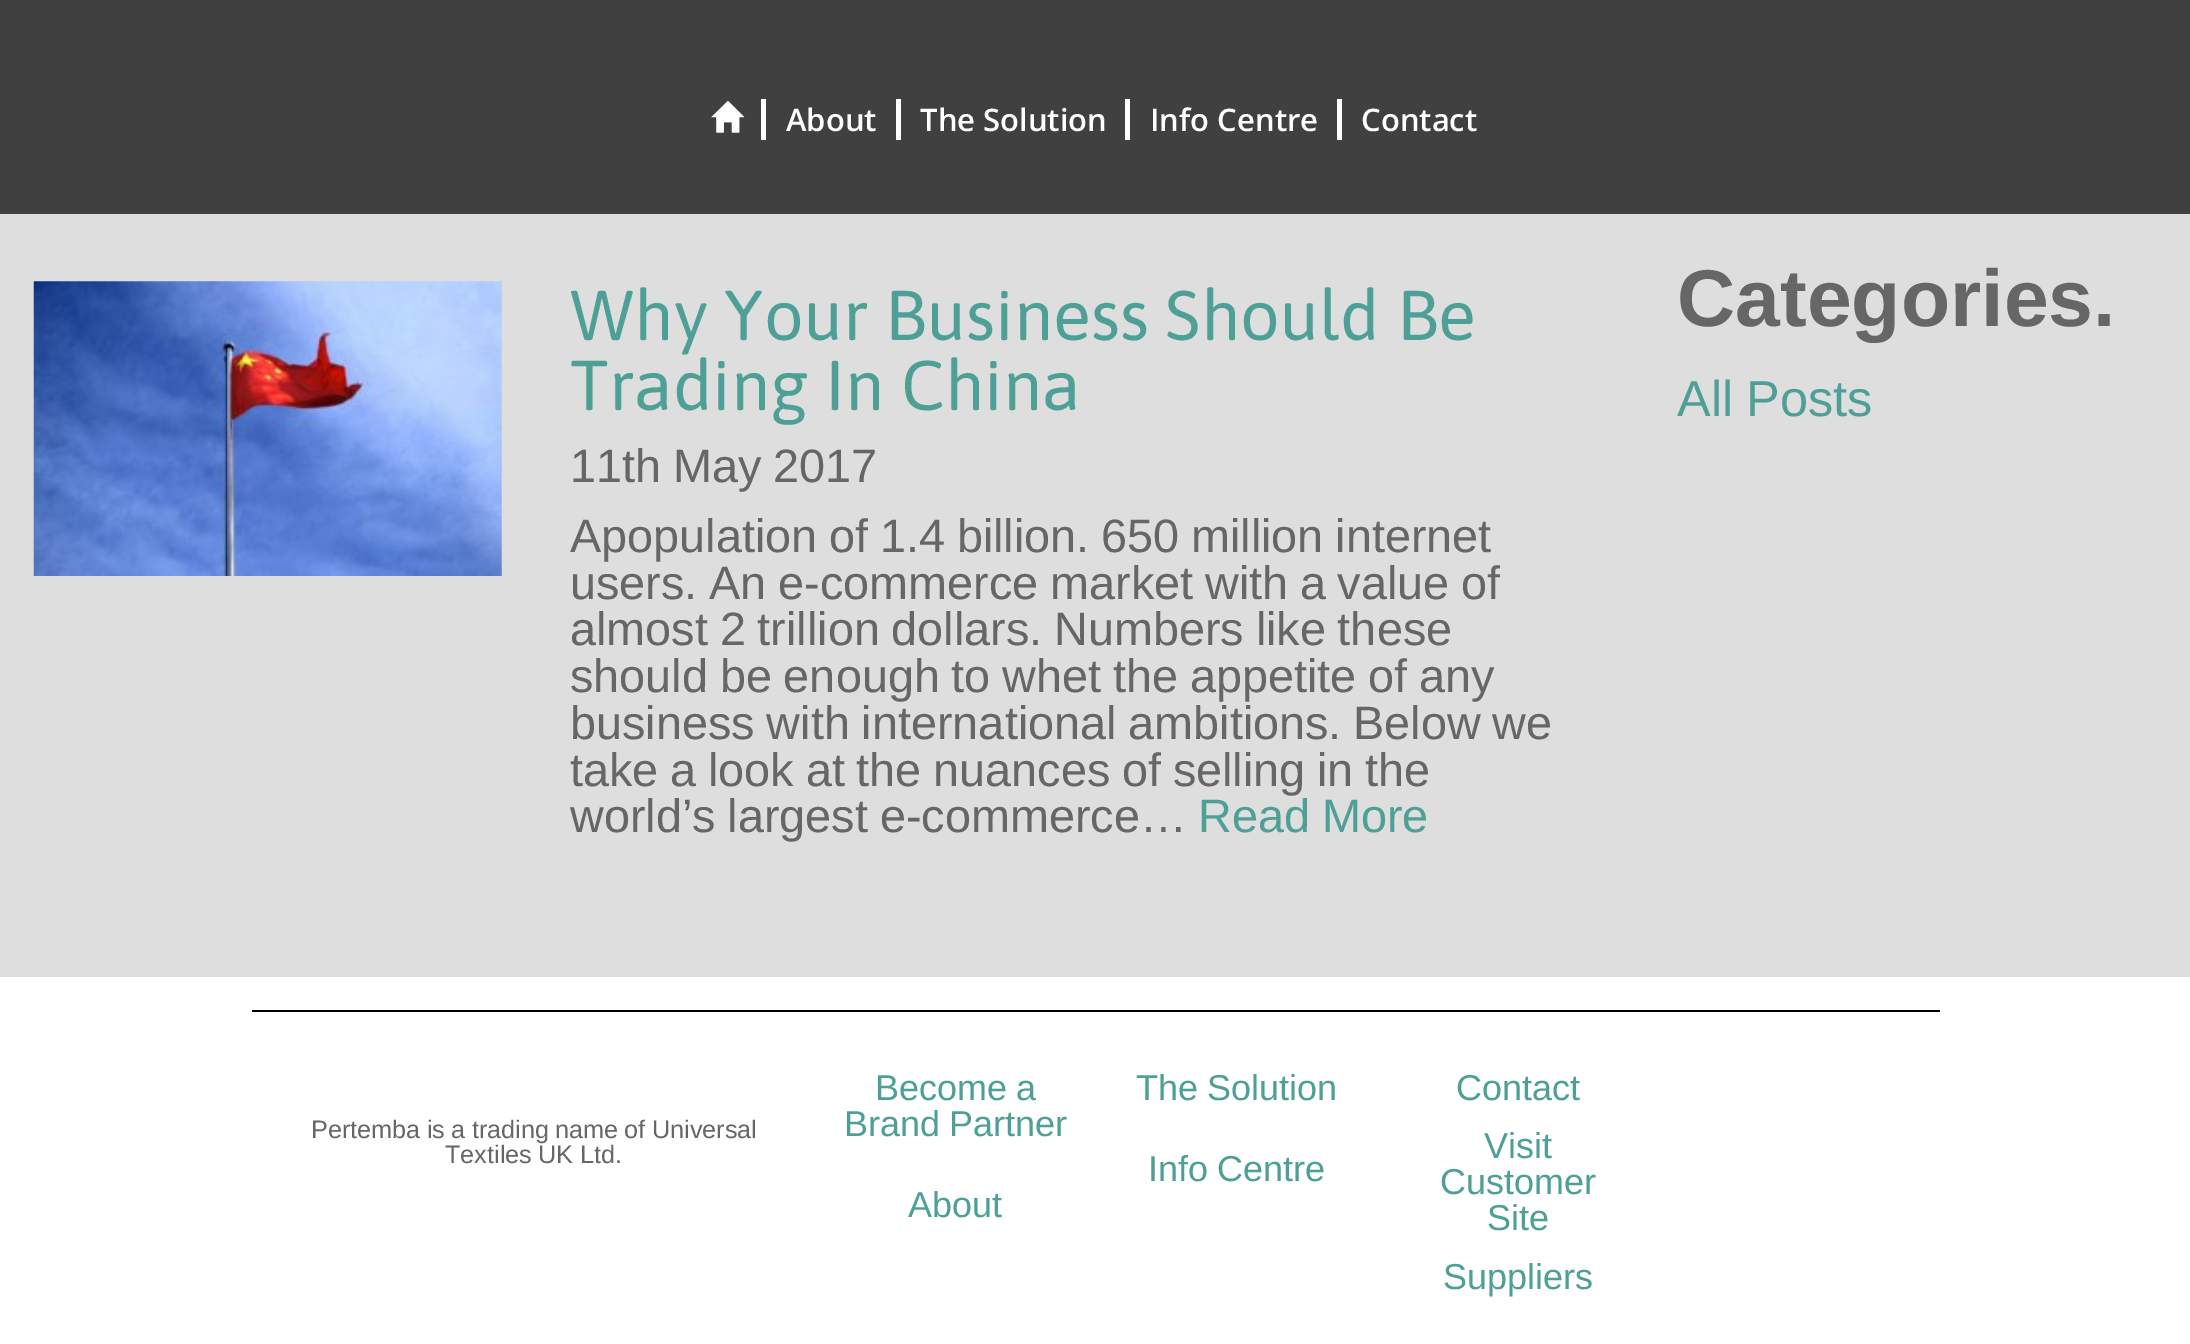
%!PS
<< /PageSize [2190 1344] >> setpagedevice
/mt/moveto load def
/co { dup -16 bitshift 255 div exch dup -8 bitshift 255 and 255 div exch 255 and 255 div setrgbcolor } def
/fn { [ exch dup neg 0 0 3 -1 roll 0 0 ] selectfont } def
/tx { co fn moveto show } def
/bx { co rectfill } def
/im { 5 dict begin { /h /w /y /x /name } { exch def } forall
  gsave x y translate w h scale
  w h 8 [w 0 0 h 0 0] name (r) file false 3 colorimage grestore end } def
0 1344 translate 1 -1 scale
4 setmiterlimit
0 0 2190 1344 16#DEDEDE bx
0 0 2190 214 16#404041 bx
(media/1.raw) 711 101 34 32 im
761 99 5 41 16#FFFFFF bx
896 99 5 41 16#FFFFFF bx
1125 99 5 41 16#FFFFFF bx
1337 99 5 41 16#FFFFFF bx
(media/2.raw) 33 281 469 295 im
0 977 2190 367 16#FFFFFF bx
252 1010 1688 2 16#000000 bx
(About) 786 131 /OpenSans-SemiBold 31 16#FFFFFF tx
(The Solution) 920 131 /OpenSans-SemiBold 31 16#FFFFFF tx
(Info Centre) 1150 131 /OpenSans-SemiBold 31 16#FFFFFF tx
(Contact) 1361 131 /OpenSans-SemiBold 31 16#FFFFFF tx
(Why Your Business Should Be) 570 340 /Asap-Regular 70.25 16#4EA097 tx
(Trading In China) 570 410 /Asap-Regular 70.25 16#4EA097 tx
/LiberationSans-Regular 46.8 fn
16#666666 co
570 482 mt -1.25 0 32 (11th May 2017) widthshow
570 552 mt -1.25 0 32 (Apopulation of 1.4 billion. 650 million internet) widthshow
570 599 mt -1.25 0 32 (users. An e-commerce market with a value of) widthshow
570 645 mt -1.25 0 32 (almost 2 trillion dollars. Numbers like these) widthshow
570 692 mt -1.25 0 32 (should be enough to whet the appetite of any) widthshow
570 739 mt -1.25 0 32 (business with international ambitions. Below we) widthshow
570 786 mt -1.25 0 32 (take a look at the nuances of selling in the) widthshow
570 832 mt -1.25 0 32 (world’s largest e-commerce…) widthshow
16#4EA097 co
1198 832 mt -1.25 0 32 (Read More) widthshow
(Categories.) 1677 326 /LiberationSans-Bold 80.5 16#666666 tx
/LiberationSans-Regular 50.5 fn
16#4EA097 co
1677 416 mt -1 0 32 (All Posts) widthshow
/LiberationSans-Regular 25.25 fn
16#666666 co
311 1138 mt -.75 0 32 (Pertemba is a trading name of Universal) widthshow
445 1163 mt -.75 0 32 (Textiles UK Ltd.) widthshow
/LiberationSans-Regular 36 fn
16#4EA097 co
875 1100 mt -1 0 32 (Become a) widthshow
844 1136 mt -1 0 32 (Brand Partner) widthshow
(About) 908 1217 /LiberationSans-Regular 36 16#4EA097 tx
1136 1100 mt -1 0 32 (The Solution) widthshow
1148 1181 mt -1 0 32 (Info Centre) widthshow
(Contact) 1456 1100 /LiberationSans-Regular 36 16#4EA097 tx
(Visit) 1484 1158 /LiberationSans-Regular 36 16#4EA097 tx
(Customer) 1440 1194 /LiberationSans-Regular 36 16#4EA097 tx
(Site) 1487 1230 /LiberationSans-Regular 36 16#4EA097 tx
(Suppliers) 1443 1289 /LiberationSans-Regular 36 16#4EA097 tx
showpage
